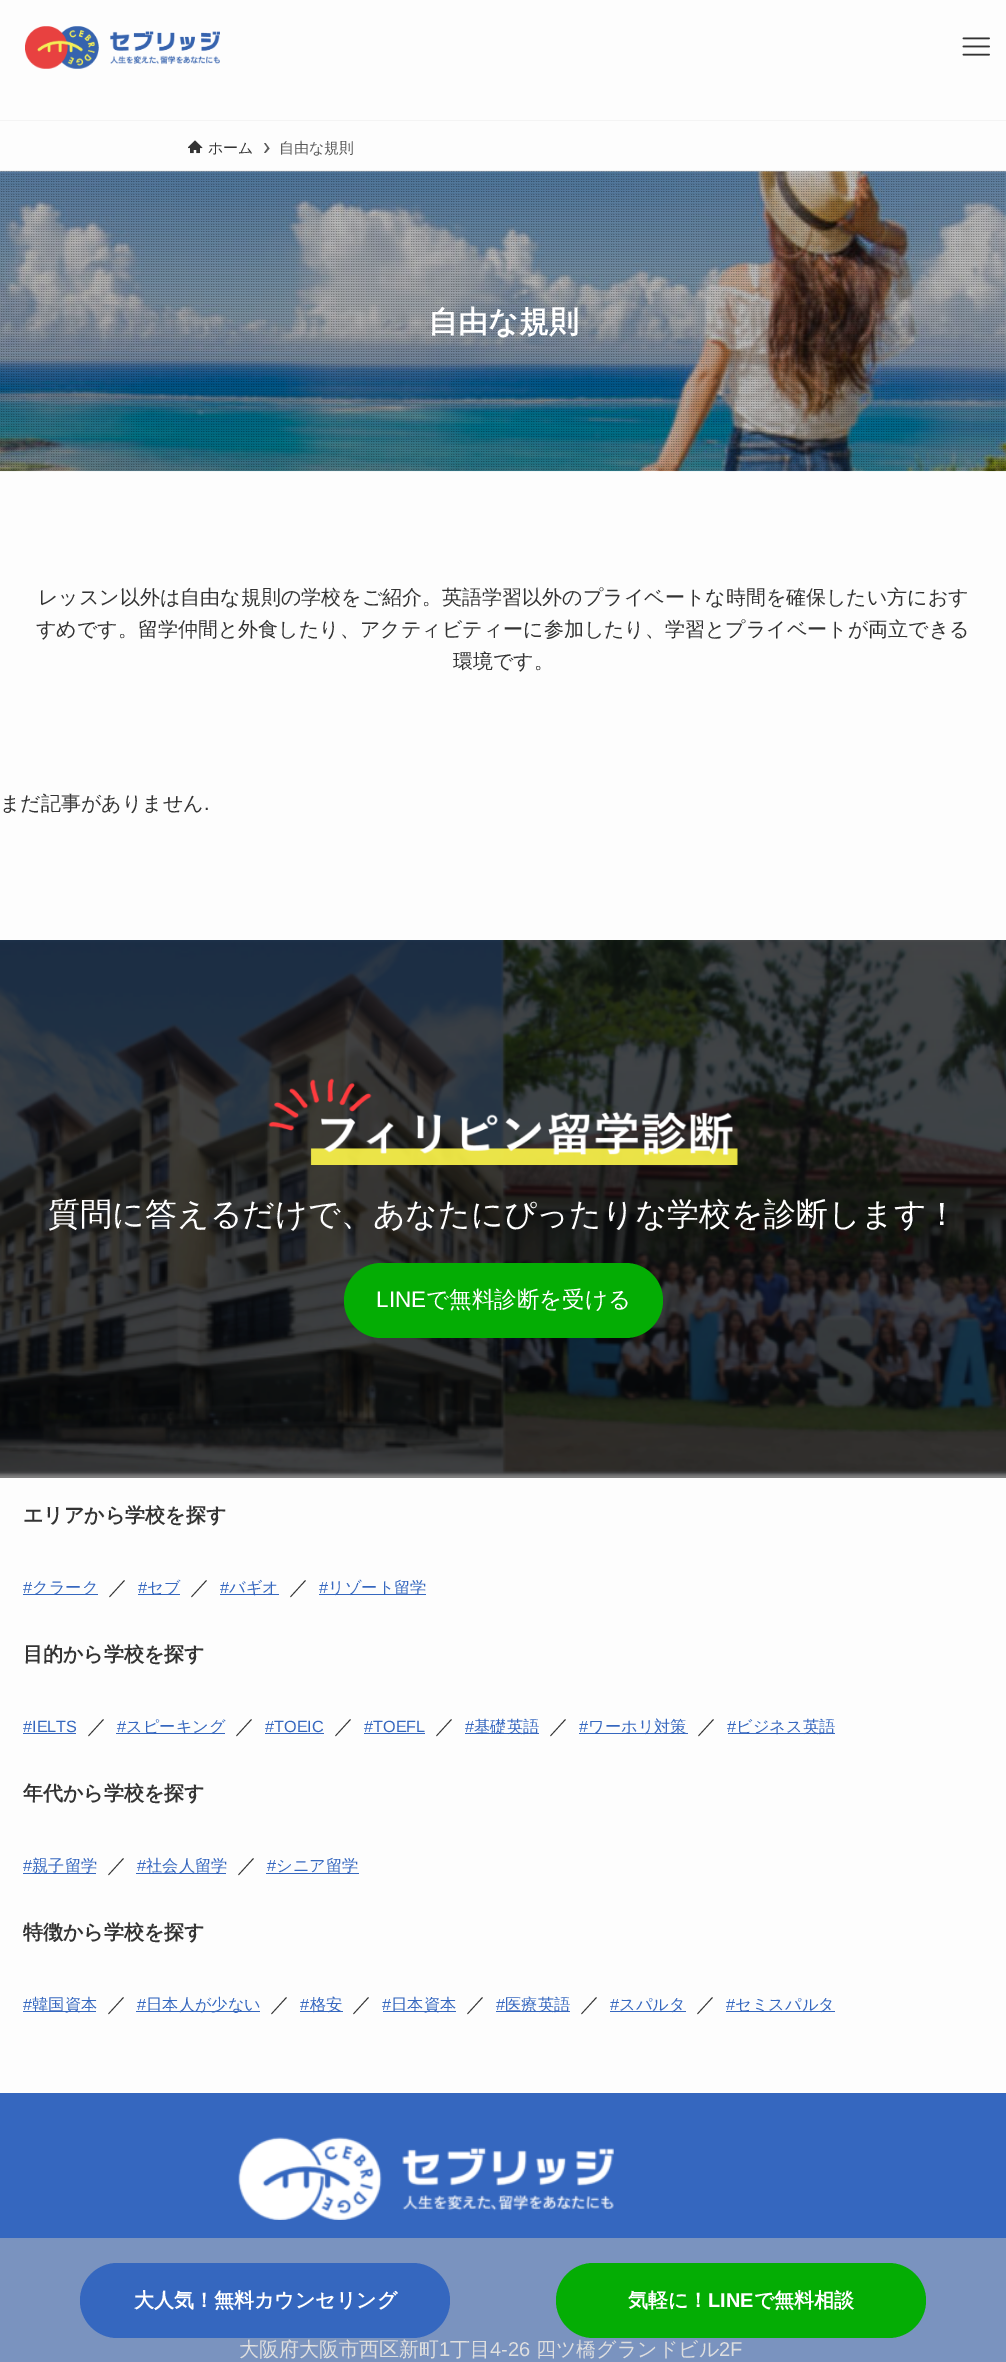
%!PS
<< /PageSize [1006 2362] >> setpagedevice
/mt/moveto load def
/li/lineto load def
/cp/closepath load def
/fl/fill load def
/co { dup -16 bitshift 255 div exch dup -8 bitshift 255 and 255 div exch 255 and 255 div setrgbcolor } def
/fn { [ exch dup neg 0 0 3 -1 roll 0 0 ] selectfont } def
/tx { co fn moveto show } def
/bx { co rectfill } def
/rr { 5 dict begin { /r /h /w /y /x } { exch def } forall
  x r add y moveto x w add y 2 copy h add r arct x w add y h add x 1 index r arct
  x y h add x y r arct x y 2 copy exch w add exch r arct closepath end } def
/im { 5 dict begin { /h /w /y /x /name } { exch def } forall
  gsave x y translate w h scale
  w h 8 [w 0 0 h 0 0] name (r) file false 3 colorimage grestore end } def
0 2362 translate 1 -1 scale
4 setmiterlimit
0 0 1006 2362 16#FDFDFD bx
0 940 1006 538 16#7F7F7F bx
0 171 1006 1 16#C0C0C0 bx
(media/1.raw) 25 26 195 43 im
(media/2.raw) 962 37 28 19 im
0 120 1006 1 16#F4F4F4 bx
0 170 1006 1 16#F4F4F4 bx
(media/3.raw) 188 140 15 14 im
16#5B5B5B co
265.5 143 mt 264 143 li 267.5 148 li 264 153 li 265.5 153 li 269.5 148.5 li cp fl
(media/4.raw) 0 171 1006 301 im
(media/5.raw) 0 171 1006 300 im
(media/6.raw) 0 940 1006 537 im
(media/7.raw) 268 1078 470 87 im
16#04AD04 co
344 1263 319 75 37.5 rr fl
23 1594 75 1 16#3567BF bx
138 1594 42 1 16#3567BF bx
220 1594 59 1 16#3567BF bx
319 1594 107 1 16#3567BF bx
23 1733 53 1 16#3567BF bx
116 1733 109 1 16#3567BF bx
265 1733 59 1 16#3567BF bx
364 1733 61 1 16#3567BF bx
465 1733 74 1 16#3567BF bx
579 1733 109 1 16#3567BF bx
728 1733 107 1 16#3567BF bx
23 1873 73 1 16#3567BF bx
136 1873 90 1 16#3567BF bx
266 1873 93 1 16#3567BF bx
23 2011 73 1 16#3567BF bx
136 2011 124 1 16#3567BF bx
300 2011 43 1 16#3567BF bx
383 2011 73 1 16#3567BF bx
496 2011 74 1 16#3567BF bx
610 2011 76 1 16#3567BF bx
726 2011 109 1 16#3567BF bx
0 2238 1006 124 16#7A93BF bx
16#3567BF co
80 2263 370 75 37.5 rr fl
16#04AD04 co
556 2263 370 75 37.5 rr fl
0 2093 1006 145 16#3567BF bx
(media/8.raw) 238 2137 376 83 im
(ホーム) 208 153 /WenQuanYiZenHei-Medium 15 16#333333 tx
(自由な規則) 279 153 /WenQuanYiZenHei-Medium 15 16#5B5B5B tx
(自由な規則) 428 332 /WenQuanYiZenHei-Bold 30 16#FFFFFF tx
(レッスン以外は自由な規則の学校をご紹介。英語学習以外のプライベートな時間を確保したい方におす) 38 604 /WenQuanYiZenHei-Medium 20 16#333333 tx
(すめです。留学仲間と外食したり、アクティビティーに参加したり、学習とプライベートが両立できる) 36 636 /WenQuanYiZenHei-Medium 20 16#333333 tx
(環境です。) 453 668 /WenQuanYiZenHei-Medium 20 16#333333 tx
(まだ記事がありません) 0 810 /WenQuanYiZenHei-Medium 20 16#333333 tx
(.) 204 810 /LiberationSans-Regular 20 16#333333 tx
(質問に答えるだけで、あなたにぴったりな学校を診断します！) 48 1225 /WenQuanYiZenHei-Medium 32 16#FFFFFF tx
(LINE) 376 1307 /LiberationSans-Regular 22.5 16#FFFFFF tx
(で無料診断を受ける) 426 1307 /WenQuanYiZenHei-Medium 22.5 16#FFFFFF tx
(エリアから学校を探す) 23 1522 /WenQuanYiZenHei-Bold 20 16#333333 tx
(#) 23 1593 /LiberationSans-Regular 16.25 16#3567BF tx
(クラーク) 32 1593 /WenQuanYiZenHei-Medium 16.25 16#3567BF tx
(／) 108 1594 /WenQuanYiZenHei-Medium 20 16#333333 tx
(#) 138 1593 /LiberationSans-Regular 16.25 16#3567BF tx
(セブ) 147 1593 /WenQuanYiZenHei-Medium 16.25 16#3567BF tx
(／) 190 1594 /WenQuanYiZenHei-Medium 20 16#333333 tx
(#) 220 1593 /LiberationSans-Regular 16.25 16#3567BF tx
(バギオ) 229 1593 /WenQuanYiZenHei-Medium 16.25 16#3567BF tx
(／) 289 1594 /WenQuanYiZenHei-Medium 20 16#333333 tx
(#) 319 1593 /LiberationSans-Regular 16.25 16#3567BF tx
(リゾート留学) 328 1593 /WenQuanYiZenHei-Medium 16.25 16#3567BF tx
(目的から学校を探す) 23 1661 /WenQuanYiZenHei-Bold 20 16#333333 tx
(#IELTS) 23 1732 /LiberationSans-Regular 16.25 16#3567BF tx
(／) 87 1733 /WenQuanYiZenHei-Medium 20 16#333333 tx
(#) 117 1732 /LiberationSans-Regular 16.25 16#3567BF tx
(スピーキング) 126 1732 /WenQuanYiZenHei-Medium 16.25 16#3567BF tx
(／) 235 1733 /WenQuanYiZenHei-Medium 20 16#333333 tx
(#TOEIC) 265 1732 /LiberationSans-Regular 16.25 16#3567BF tx
(／) 334 1733 /WenQuanYiZenHei-Medium 20 16#333333 tx
(#TOEFL) 364 1732 /LiberationSans-Regular 16.25 16#3567BF tx
(／) 435 1733 /WenQuanYiZenHei-Medium 20 16#333333 tx
(#) 465 1732 /LiberationSans-Regular 16.25 16#3567BF tx
(基礎英語) 474 1732 /WenQuanYiZenHei-Medium 16.25 16#3567BF tx
(／) 549 1733 /WenQuanYiZenHei-Medium 20 16#333333 tx
(#) 579 1732 /LiberationSans-Regular 16.25 16#3567BF tx
(ワーホリ対策) 588 1732 /WenQuanYiZenHei-Medium 16.25 16#3567BF tx
(／) 697 1733 /WenQuanYiZenHei-Medium 20 16#333333 tx
(#) 727 1732 /LiberationSans-Regular 16.25 16#3567BF tx
(ビジネス英語) 736 1732 /WenQuanYiZenHei-Medium 16.25 16#3567BF tx
(年代から学校を探す) 23 1800 /WenQuanYiZenHei-Bold 20 16#333333 tx
(#) 23 1871 /LiberationSans-Regular 16.25 16#3567BF tx
(親子留学) 32 1871 /WenQuanYiZenHei-Medium 16.25 16#3567BF tx
(／) 107 1872 /WenQuanYiZenHei-Medium 20 16#333333 tx
(#) 137 1871 /LiberationSans-Regular 16.25 16#3567BF tx
(社会人留学) 146 1871 /WenQuanYiZenHei-Medium 16.25 16#3567BF tx
(／) 237 1872 /WenQuanYiZenHei-Medium 20 16#333333 tx
(#) 267 1871 /LiberationSans-Regular 16.25 16#3567BF tx
(シニア留学) 276 1871 /WenQuanYiZenHei-Medium 16.25 16#3567BF tx
(特徴から学校を探す) 23 1939 /WenQuanYiZenHei-Bold 20 16#333333 tx
(#) 23 2010 /LiberationSans-Regular 16.25 16#3567BF tx
(韓国資本) 32 2010 /WenQuanYiZenHei-Medium 16.25 16#3567BF tx
(／) 107 2011 /WenQuanYiZenHei-Medium 20 16#333333 tx
(#) 137 2010 /LiberationSans-Regular 16.25 16#3567BF tx
(日本人が少ない) 146 2010 /WenQuanYiZenHei-Medium 16.25 16#3567BF tx
(／) 270 2011 /WenQuanYiZenHei-Medium 20 16#333333 tx
(#) 300 2010 /LiberationSans-Regular 16.25 16#3567BF tx
(格安) 310 2010 /WenQuanYiZenHei-Medium 16.25 16#3567BF tx
(／) 352 2011 /WenQuanYiZenHei-Medium 20 16#333333 tx
(#) 382 2010 /LiberationSans-Regular 16.25 16#3567BF tx
(日本資本) 391 2010 /WenQuanYiZenHei-Medium 16.25 16#3567BF tx
(／) 466 2011 /WenQuanYiZenHei-Medium 20 16#333333 tx
(#) 496 2010 /LiberationSans-Regular 16.25 16#3567BF tx
(医療英語) 505 2010 /WenQuanYiZenHei-Medium 16.25 16#3567BF tx
(／) 580 2011 /WenQuanYiZenHei-Medium 20 16#333333 tx
(#) 610 2010 /LiberationSans-Regular 16.25 16#3567BF tx
(スパルタ) 619 2010 /WenQuanYiZenHei-Medium 16.25 16#3567BF tx
(／) 696 2011 /WenQuanYiZenHei-Medium 20 16#333333 tx
(#) 726 2010 /LiberationSans-Regular 16.25 16#3567BF tx
(セミスパルタ) 735 2010 /WenQuanYiZenHei-Medium 16.25 16#3567BF tx
(大人気！無料カウンセリング) 134 2307 /WenQuanYiZenHei-Bold 20 16#FFFFFF tx
(気軽に！) 628 2307 /WenQuanYiZenHei-Bold 20 16#FFFFFF tx
(LINE) 708 2307 /LiberationSans-Bold 20 16#FFFFFF tx
(で無料相談) 754 2307 /WenQuanYiZenHei-Bold 20 16#FFFFFF tx
(大阪府大阪市西区新町) 239 2356 /WenQuanYiZenHei-Medium 20 16#DFDFDF tx
(1) 439 2356 /LiberationSans-Regular 20 16#DFDFDF tx
(丁目) 450 2356 /WenQuanYiZenHei-Medium 20 16#DFDFDF tx
(4-26) 490 2356 /LiberationSans-Regular 20 16#DFDFDF tx
(四ツ橋グランドビル) 536 2356 /WenQuanYiZenHei-Medium 20 16#DFDFDF tx
(2F) 719 2356 /LiberationSans-Regular 20 16#DFDFDF tx
showpage
